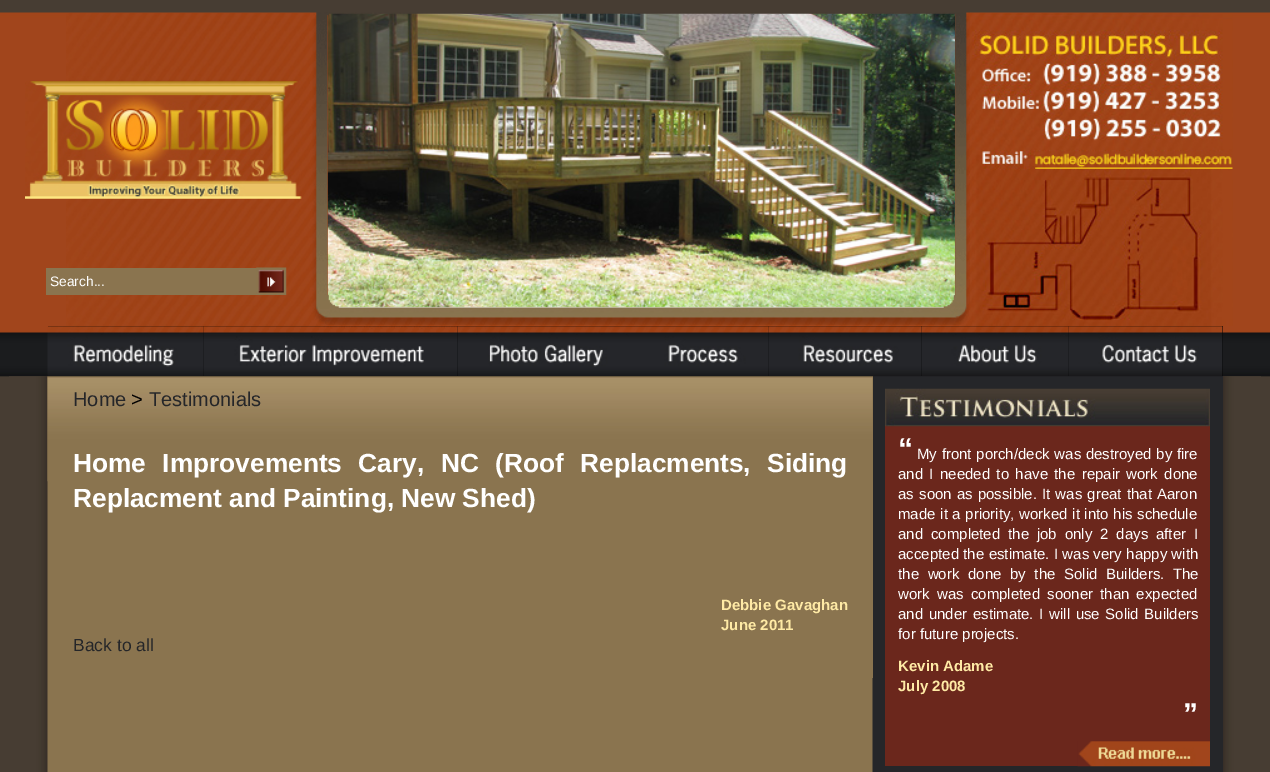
%!PS
<< /PageSize [1270 772] /PageUsesTransparency true >> setpagedevice
/mt/moveto load def
/co { dup -16 bitshift 255 div exch dup -8 bitshift 255 and 255 div exch 255 and 255 div setrgbcolor } def
/fn { [ exch dup neg 0 0 3 -1 roll 0 0 ] selectfont } def
/tx { co fn moveto show } def
/bx { co rectfill } def
/al { dup .setfillconstantalpha .setstrokeconstantalpha } def
/im { 5 dict begin { /h /w /y /x /name } { exch def } forall
  gsave x y translate w h scale
  w h 8 [w 0 0 h 0 0] name (r) file false 3 colorimage grestore end } def
0 .pushpdf14devicefilter
0 772 translate 1 -1 scale
4 setmiterlimit
0 0 1270 772 16#473D33 bx
(media/1.raw) 0 12 1270 365 im
(media/2.raw) 66 13 1134 313 im
(media/3.raw) 25 81 277 118 im
46 268 211 27 16#8A744F bx
(media/4.raw) 256 267 31 28 im
0.1 al
328 13 627 295 16#FFFFFF bx
1 al
(media/7.raw) 328 13 627 295 im
0.99 al
328 13 627 295 16#FFFFFF bx
1 al
(media/6.raw) 327 13 628 295 im
(media/5.raw) 310 12 660 313 im
(media/8.raw) 972 14 261 312 im
48 326 410 50 16#000000 bx
(media/16.raw) 9 376 1252 396 im
48 376 825 302 16#8A744F bx
(media/17.raw) 47 376 826 106 im
(media/9.raw) 47 326 157 51 im
(media/10.raw) 203 326 255 51 im
(media/11.raw) 457 326 178 51 im
635 326 134 50 16#000000 bx
(media/12.raw) 635 326 134 51 im
873 376 350 396 16#252629 bx
(media/13.raw) 768 326 153 51 im
921 326 302 50 16#000000 bx
(media/14.raw) 921 326 148 51 im
(media/15.raw) 1068 326 155 51 im
885 426 325 340 16#6B271C bx
(media/18.raw) 885 388 325 39 im
(media/19.raw) 1077 741 133 26 im
(Search...) 50 286 /LiberationSans-Regular 13.75 16#FFFFFF tx
(Home) 73 406 /LiberationSans-Regular 20 16#252629 tx
(>) 131 406 /LiberationSans-Regular 20 16#000000 tx
(Testimonials) 149 406 /LiberationSans-Regular 20 16#252629 tx
/LiberationSans-Bold 26.25 fn
16#FFFFFF co
73 472 mt 9.25 0 32 (Home Improvements Cary, NC \(Roof Replacments, Siding) widthshow
(Replacment and Painting, New Shed\)) 73 507 /LiberationSans-Bold 26.25 16#FFFFFF tx
(Debbie Gavaghan) 721 610 /LiberationSans-Bold 15 16#FFEAA5 tx
(June 2011) 721 630 /LiberationSans-Bold 15 16#FFEAA5 tx
(Back to all) 73 651 /LiberationSans-Regular 17.5 16#252629 tx
(“) 898 459 /LiberationSans-Bold 30 16#FFFFFF tx
/LiberationSans-Regular 15 fn
917 459 mt .5 0 32 (My front porch/deck was destroyed by fire) widthshow
898 479 mt 2.25 0 32 (and I needed to have the repair work done) widthshow
898 499 mt 1 0 32 (as soon as possible.) widthshow
1042 499 mt 1 0 32 (It was great that Aaron) widthshow
898 519 mt .5 0 32 (made it a priority, worked it into his schedule) widthshow
898 539 mt 3.75 0 32 (and completed the job only 2 days after I) widthshow
898 559 mt .25 0 32 (accepted the estimate. I was very happy with) widthshow
898 579 mt 4.5 0 32 (the work done by the Solid Builders. The) widthshow
898 599 mt 3 0 32 (work was completed sooner than expected) widthshow
898 619 mt 1.5 0 32 (and under estimate. I will use Solid Builders) widthshow
(for future projects.) 898 639 /LiberationSans-Regular 15 16#FFFFFF tx
(Kevin Adame) 898 671 /LiberationSans-Bold 15 16#FFEAA5 tx
(July 2008) 898 691 /LiberationSans-Bold 15 16#FFEAA5 tx
(”) 1183 724 /LiberationSans-Bold 30 16#FFFFFF tx
.poppdf14devicefilter showpage
